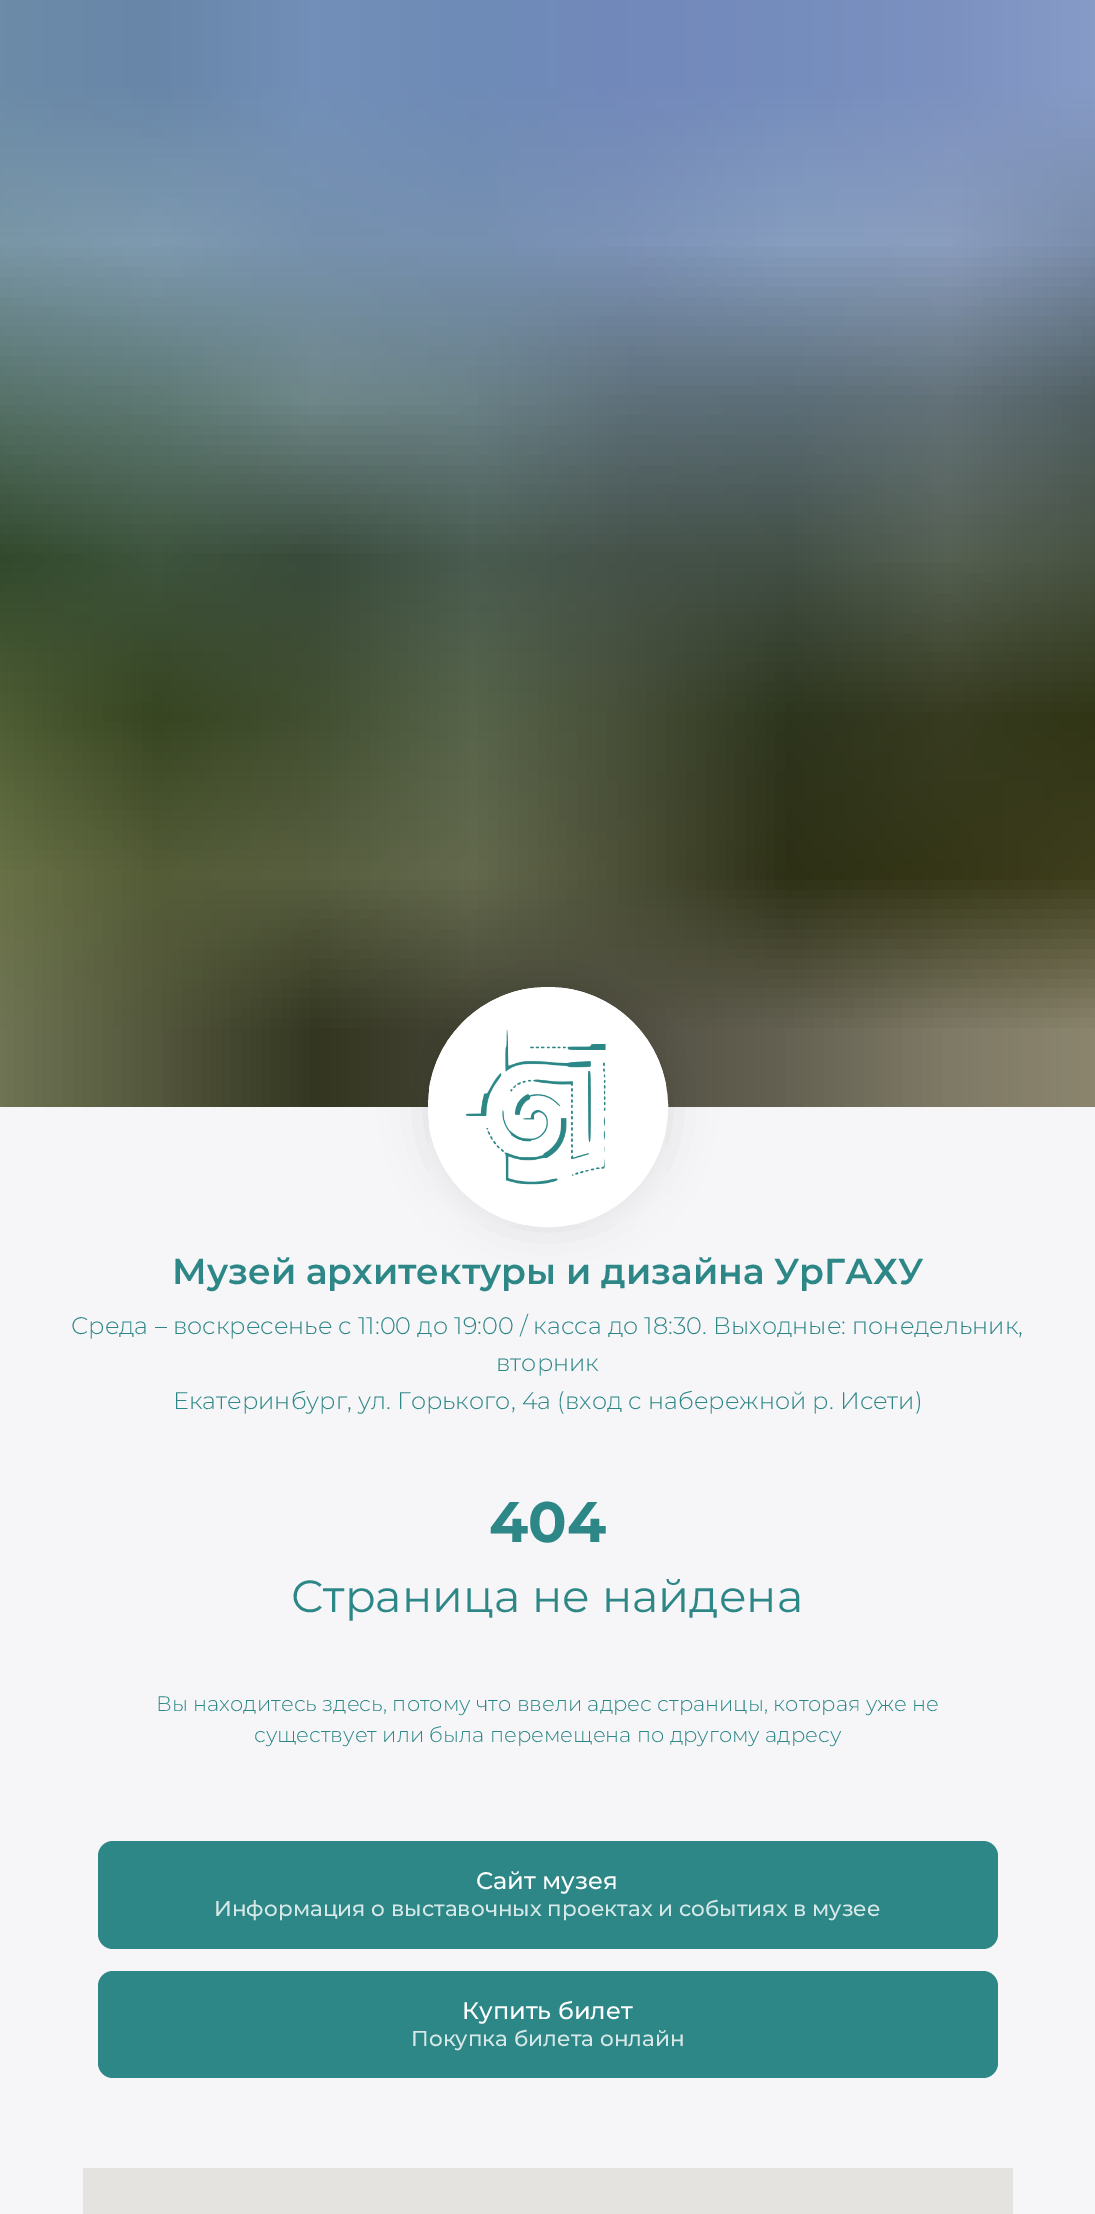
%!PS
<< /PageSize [1095 2214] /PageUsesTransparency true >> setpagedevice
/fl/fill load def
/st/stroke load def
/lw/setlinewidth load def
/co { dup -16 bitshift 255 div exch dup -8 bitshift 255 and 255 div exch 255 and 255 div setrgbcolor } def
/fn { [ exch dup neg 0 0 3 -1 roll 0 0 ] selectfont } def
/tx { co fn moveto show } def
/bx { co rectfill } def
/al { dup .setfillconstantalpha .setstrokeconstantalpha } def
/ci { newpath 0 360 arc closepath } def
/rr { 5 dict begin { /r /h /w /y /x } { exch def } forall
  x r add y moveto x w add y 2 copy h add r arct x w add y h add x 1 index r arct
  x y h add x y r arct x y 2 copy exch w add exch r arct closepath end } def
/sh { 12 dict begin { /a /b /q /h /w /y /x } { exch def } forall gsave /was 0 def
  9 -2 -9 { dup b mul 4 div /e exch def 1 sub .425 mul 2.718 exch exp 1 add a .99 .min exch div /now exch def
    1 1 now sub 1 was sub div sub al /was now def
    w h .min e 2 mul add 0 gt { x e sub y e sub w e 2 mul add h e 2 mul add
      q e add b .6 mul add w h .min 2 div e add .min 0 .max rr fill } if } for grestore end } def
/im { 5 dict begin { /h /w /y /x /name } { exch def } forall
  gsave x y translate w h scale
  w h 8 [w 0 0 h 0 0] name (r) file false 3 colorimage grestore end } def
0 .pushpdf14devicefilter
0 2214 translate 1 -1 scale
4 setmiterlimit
0 0 1095 2214 16#F6F6F8 bx
(media/1.raw) 0 0 1095 1107 im
16#000000 co
428 987 240 240 120 22.5 .1 sh
(media/2.raw) 429 988 237 237 im
16#FFFFFF co
2 lw
548 1107 119 ci st
16#2D8787 co
98 1841 900 108 15 rr fl
98 1971 900 107 15 rr fl
83 2168 930 46 16#E5E3DF bx
(Музей архитектуры и дизайна УрГАХУ) 172 1284 /Montserrat-SemiBold 36 16#2D8787 tx
(Среда – воскресенье с 11:00 до 19:00 / касса до 18:30. Выходные: понедельник,) 71 1334 /Montserrat-Light 24 16#2D8787 tx
(вторник) 496 1371 /Montserrat-Light 24 16#2D8787 tx
(Екатеринбург, ул. Горького, 4а \(вход с набережной р. Исети\)) 173 1409 /Montserrat-Light 24 16#2D8787 tx
(404) 489 1542 /Montserrat-Bold 57 16#2D8787 tx
(Страница не найдена) 291 1612 /Montserrat-Regular 45 16#2D8787 tx
(Вы находитесь здесь, потому что ввели адрес страницы, которая уже не) 156 1711 /Montserrat-Light 21 16#2D8787 tx
(существует или была перемещена по другому адресу) 254 1742 /Montserrat-Light 21 16#2D8787 tx
(Сайт музея) 476 1889 /Montserrat-Medium 24 16#FFFFFF tx
(Информация о выставочных проектах и событиях в музее) 214 1916 /Montserrat-Medium 21.6 16#D5E7E7 tx
(Купить билет) 462 2019 /Montserrat-Medium 24 16#FFFFFF tx
(Покупка билета онлайн) 411 2046 /Montserrat-Medium 21.6 16#D5E7E7 tx
.poppdf14devicefilter showpage
